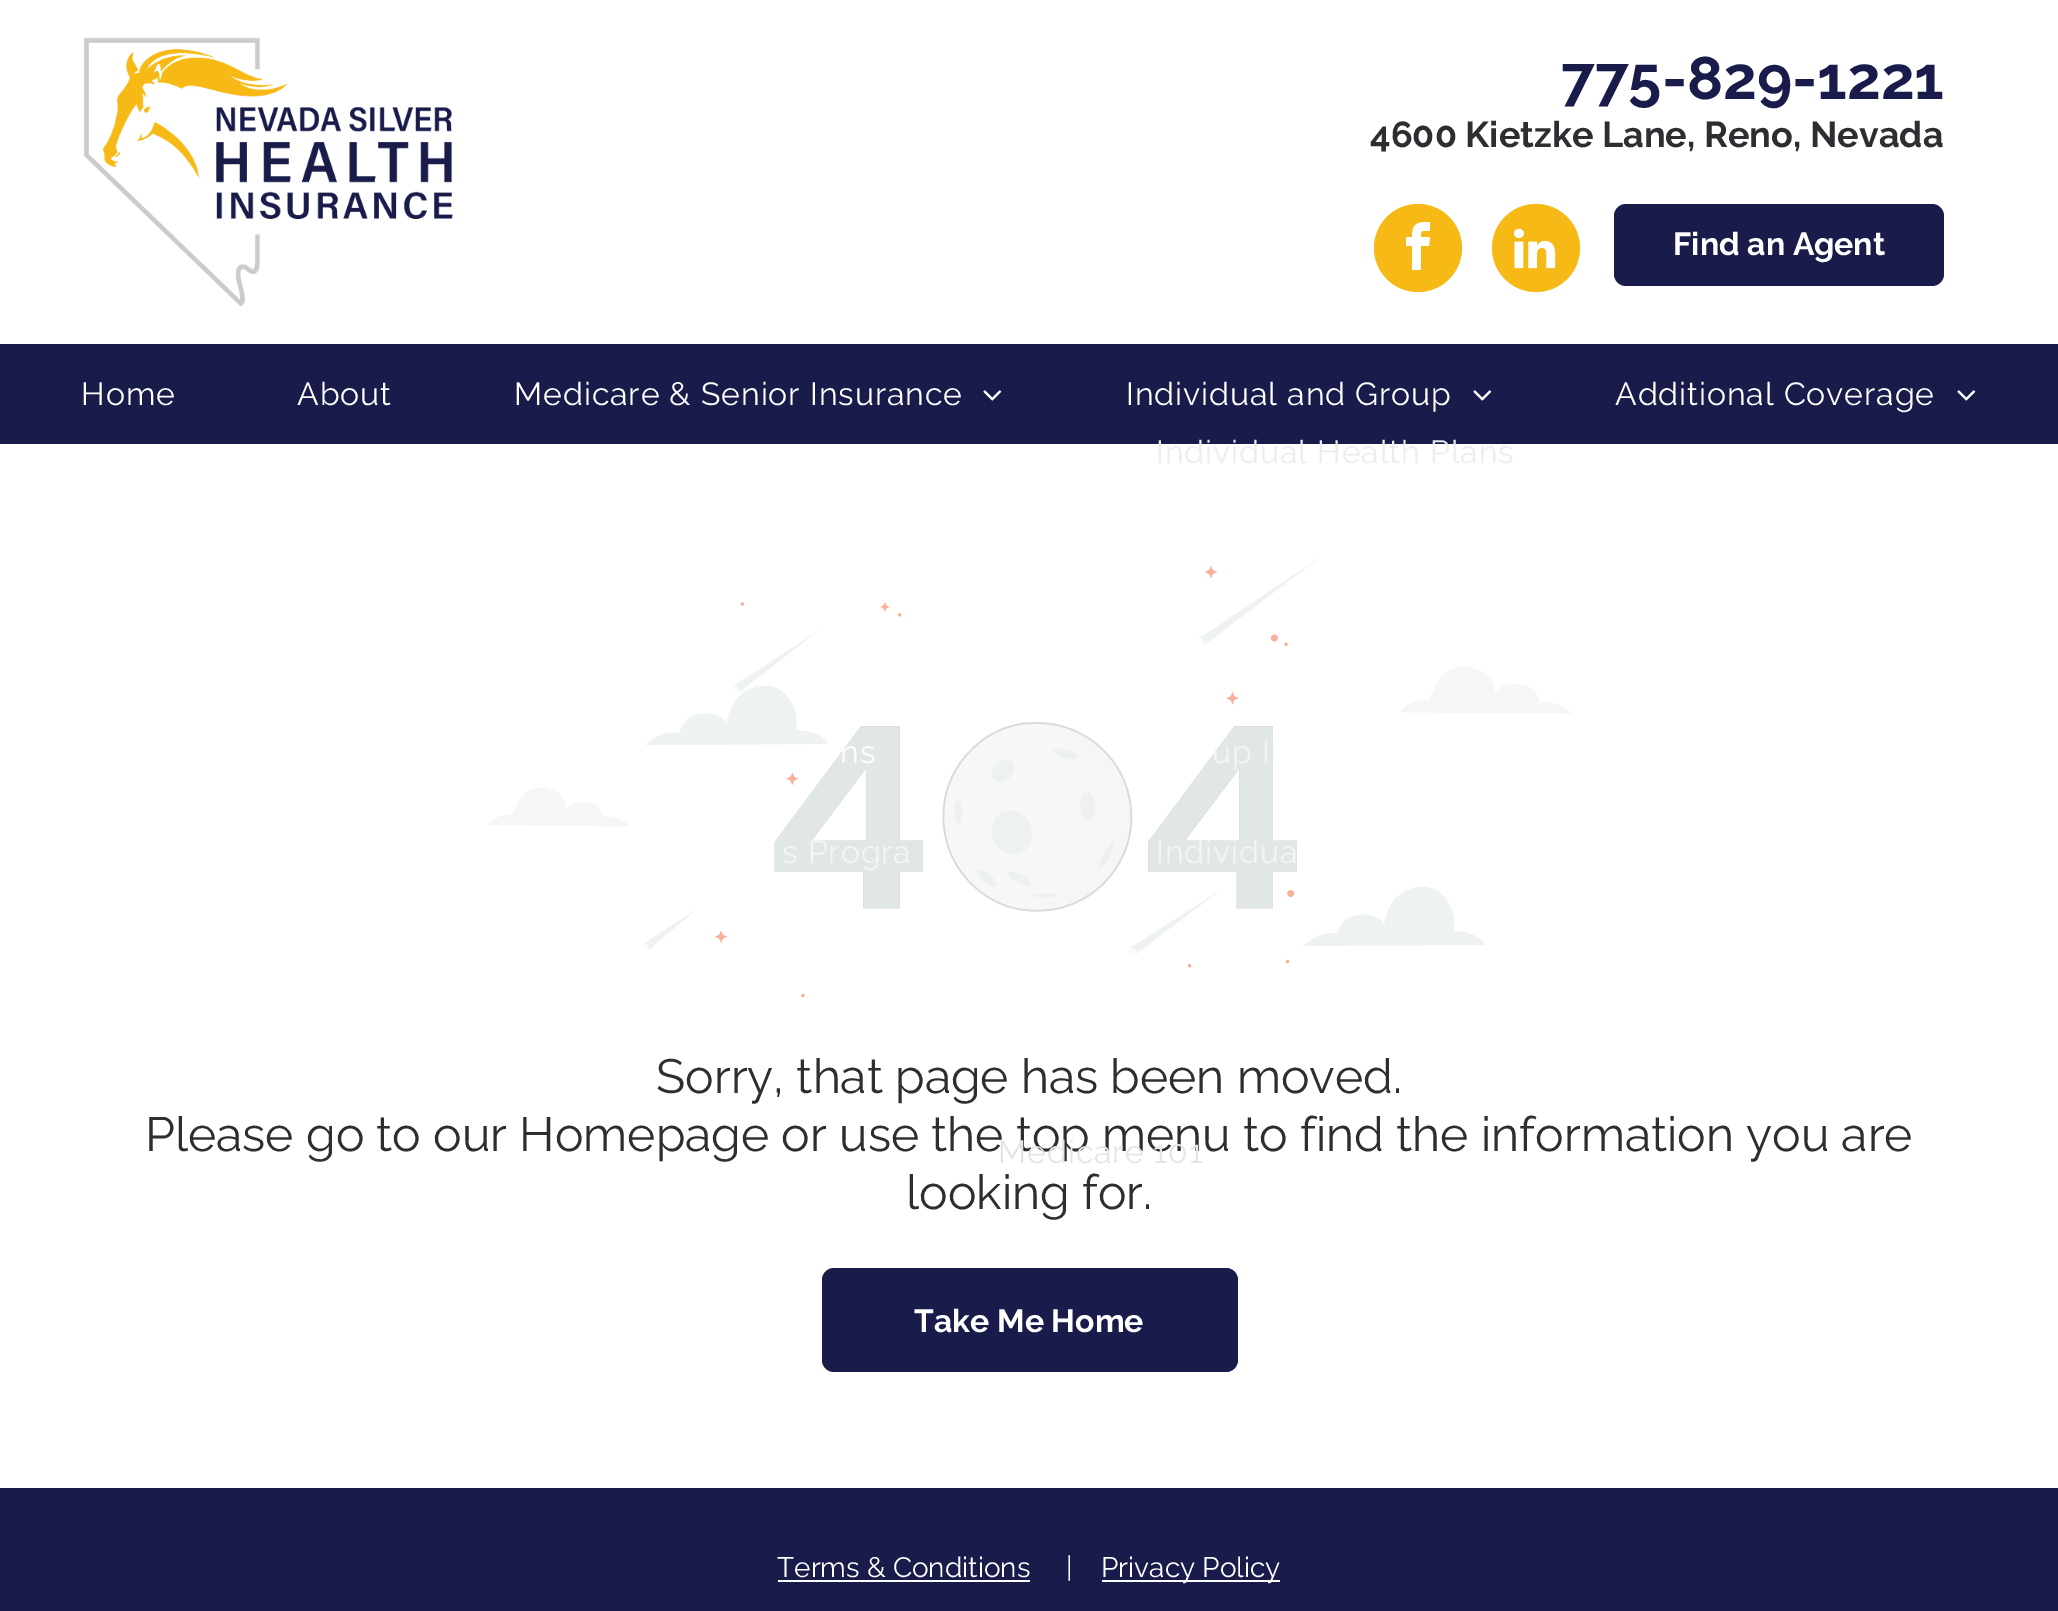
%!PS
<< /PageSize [2058 1611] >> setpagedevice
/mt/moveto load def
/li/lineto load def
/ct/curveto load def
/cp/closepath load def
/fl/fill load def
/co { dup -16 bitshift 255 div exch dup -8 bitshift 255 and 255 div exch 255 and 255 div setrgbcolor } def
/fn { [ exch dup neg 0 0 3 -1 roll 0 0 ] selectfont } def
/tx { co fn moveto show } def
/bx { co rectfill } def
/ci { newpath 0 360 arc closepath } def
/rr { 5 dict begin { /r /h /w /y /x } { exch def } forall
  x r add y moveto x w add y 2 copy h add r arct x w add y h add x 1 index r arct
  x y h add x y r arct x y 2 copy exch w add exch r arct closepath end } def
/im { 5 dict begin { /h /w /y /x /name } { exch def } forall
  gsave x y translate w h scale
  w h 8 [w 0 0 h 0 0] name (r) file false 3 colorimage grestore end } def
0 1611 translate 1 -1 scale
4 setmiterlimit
0 0 2058 1611 16#FFFFFF bx
(media/1.raw) 83 37 370 270 im
16#F7B915 co
1418 248 44 ci fl
16#FFFFFF co
1423 231 mt 1430 231 li 1430 222 li 1417 222 1412 223 1412 237 ct 1406 237 li 1406 246 li 1412 246 li 1412 270 li 1421 270 li 1421 246 li 1429 246 li 1430 237 li 1421 237 li 1421 236 1420 231 1423 231 ct cp fl
16#F7B915 co
1536 248 44 ci fl
(media/2.raw) 1514 228 42 41 im
16#191C4A co
1614 204 330 82 12 rr fl
0 344 2058 100 16#191C4A bx
(media/3.raw) 983 390 19 11 im
(media/3.raw) 1473 390 19 11 im
(media/3.raw) 1957 390 19 11 im
(media/4.raw) 488 557 1083 441 im
822 1268 416 104 12 rr fl
0 1488 2058 123 16#191C4A bx
778 1580 252 2 16#FFFFFF bx
1102 1580 178 2 16#FFFFFF bx
(775-829-1221) 1561 99 /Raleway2-Bold 60 16#191C4A tx
(4600 Kietzke Lane, Reno, Nevada) 1370 147 /Raleway-Bold 36 16#2D2E32 tx
(Find an Agent) 1673 255 /Raleway-Bold 32 16#FFFFFF tx
/Raleway-Regular 32 fn
81 405 mt .95 0 (Home) ashow
297 405 mt .95 0 (About) ashow
514 405 mt .95 0 (Medicare & Senior Insurance) ashow
840 763 mt .95 0 (ns) ashow
16#F4F6F6 co
782 863 mt .95 0 (s Progra) ashow
16#FFFFFF co
1126 405 mt .95 0 (Individual and Group) ashow
16#ECEDF0 co
1156 463 mt .95 0 (Individual Health Plans) ashow
16#F4F6F6 co
1212 763 mt .95 0 (up I) ashow
1156 863 mt .95 0 (Individua) ashow
16#FFFFFF co
1615 405 mt .95 0 (Additional Coverage) ashow
(Sorry, that page has been moved.) 656 1093 /Raleway-Regular 48 16#2D2E32 tx
(Please go to our Homepage or use the top menu to find the information you are) 145 1151 /Raleway-Regular 48 16#2D2E32 tx
/Raleway-Regular 32 fn
16#E5E5E6 co
998 1163 mt .95 0 (Medicare 101) ashow
(looking for.) 906 1209 /Raleway-Regular 48 16#2D2E32 tx
(Take Me Home) 914 1332 /Raleway-Bold 32 16#FFFFFF tx
(Terms & Conditions) 777 1577 /Raleway-Regular 28 16#FFFFFF tx
(|) 1066 1577 /Raleway-Regular 28 16#FFFFFF tx
(Privacy Policy) 1101 1577 /Raleway-Regular 28 16#FFFFFF tx
showpage
